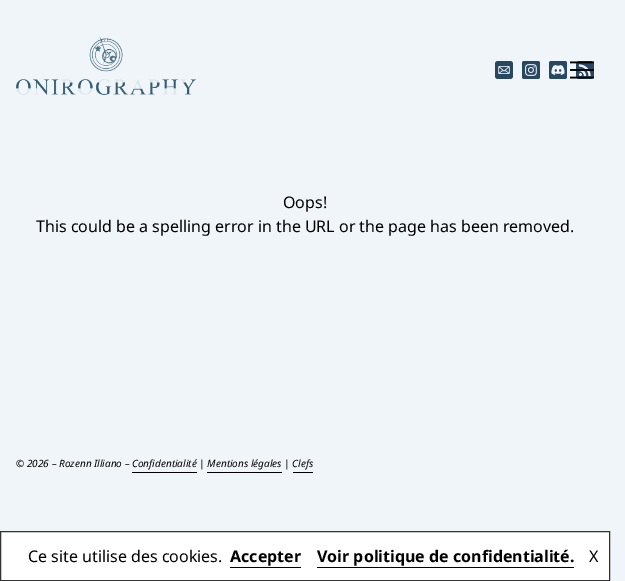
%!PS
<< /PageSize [625 581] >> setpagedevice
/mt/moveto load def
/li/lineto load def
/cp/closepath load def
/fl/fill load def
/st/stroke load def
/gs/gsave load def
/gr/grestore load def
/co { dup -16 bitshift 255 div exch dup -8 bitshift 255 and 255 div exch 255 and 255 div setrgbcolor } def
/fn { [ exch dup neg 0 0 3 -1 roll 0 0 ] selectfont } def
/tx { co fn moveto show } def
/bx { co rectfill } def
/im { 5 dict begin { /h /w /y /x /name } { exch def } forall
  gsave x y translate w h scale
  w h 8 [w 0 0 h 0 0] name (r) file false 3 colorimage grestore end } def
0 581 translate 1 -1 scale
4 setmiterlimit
0 0 625 581 16#F0F5FA bx
(media/1.raw) 16 36 180 60 im
(media/2.raw) 495 61 18 18 im
(media/3.raw) 522 61 18 18 im
(media/4.raw) 549 61 18 18 im
(media/5.raw) 576 61 18 18 im
(media/6.raw) 570 61 24 18 im
132 472 65 1 16#000000 bx
207 472 75 1 16#000000 bx
293 472 20 1 16#000000 bx
16#FFFFFF co
.5 531.5 mt 609.5 531.5 li 609.5 580.5 li .5 580.5 li cp gs fl gr
16#333333 co
st
230 567 71 1 16#000000 bx
317 567 257 1 16#000000 bx
(Oops!) 283 208 /NotoSans-Regular 16 16#000000 tx
(This could be a spelling error in the URL or the page has been removed.) 36 232 /NotoSans-Regular 16 16#000000 tx
(© 2026 – Rozenn Illiano – Confidentialité | Mentions légales | Clefs) 16 467 /NotoSans-Italic 10 16#000000 tx
(Ce site utilise des cookies.) 28 562 /NotoSans-Regular 16 16#000000 tx
(Accepter) 230 562 /NotoSans-Bold 16 16#000000 tx
(Voir politique de confidentialité.) 317 562 /NotoSans-Bold 16 16#000000 tx
(X) 589 562 /NotoSans-Regular 16 16#000000 tx
showpage
